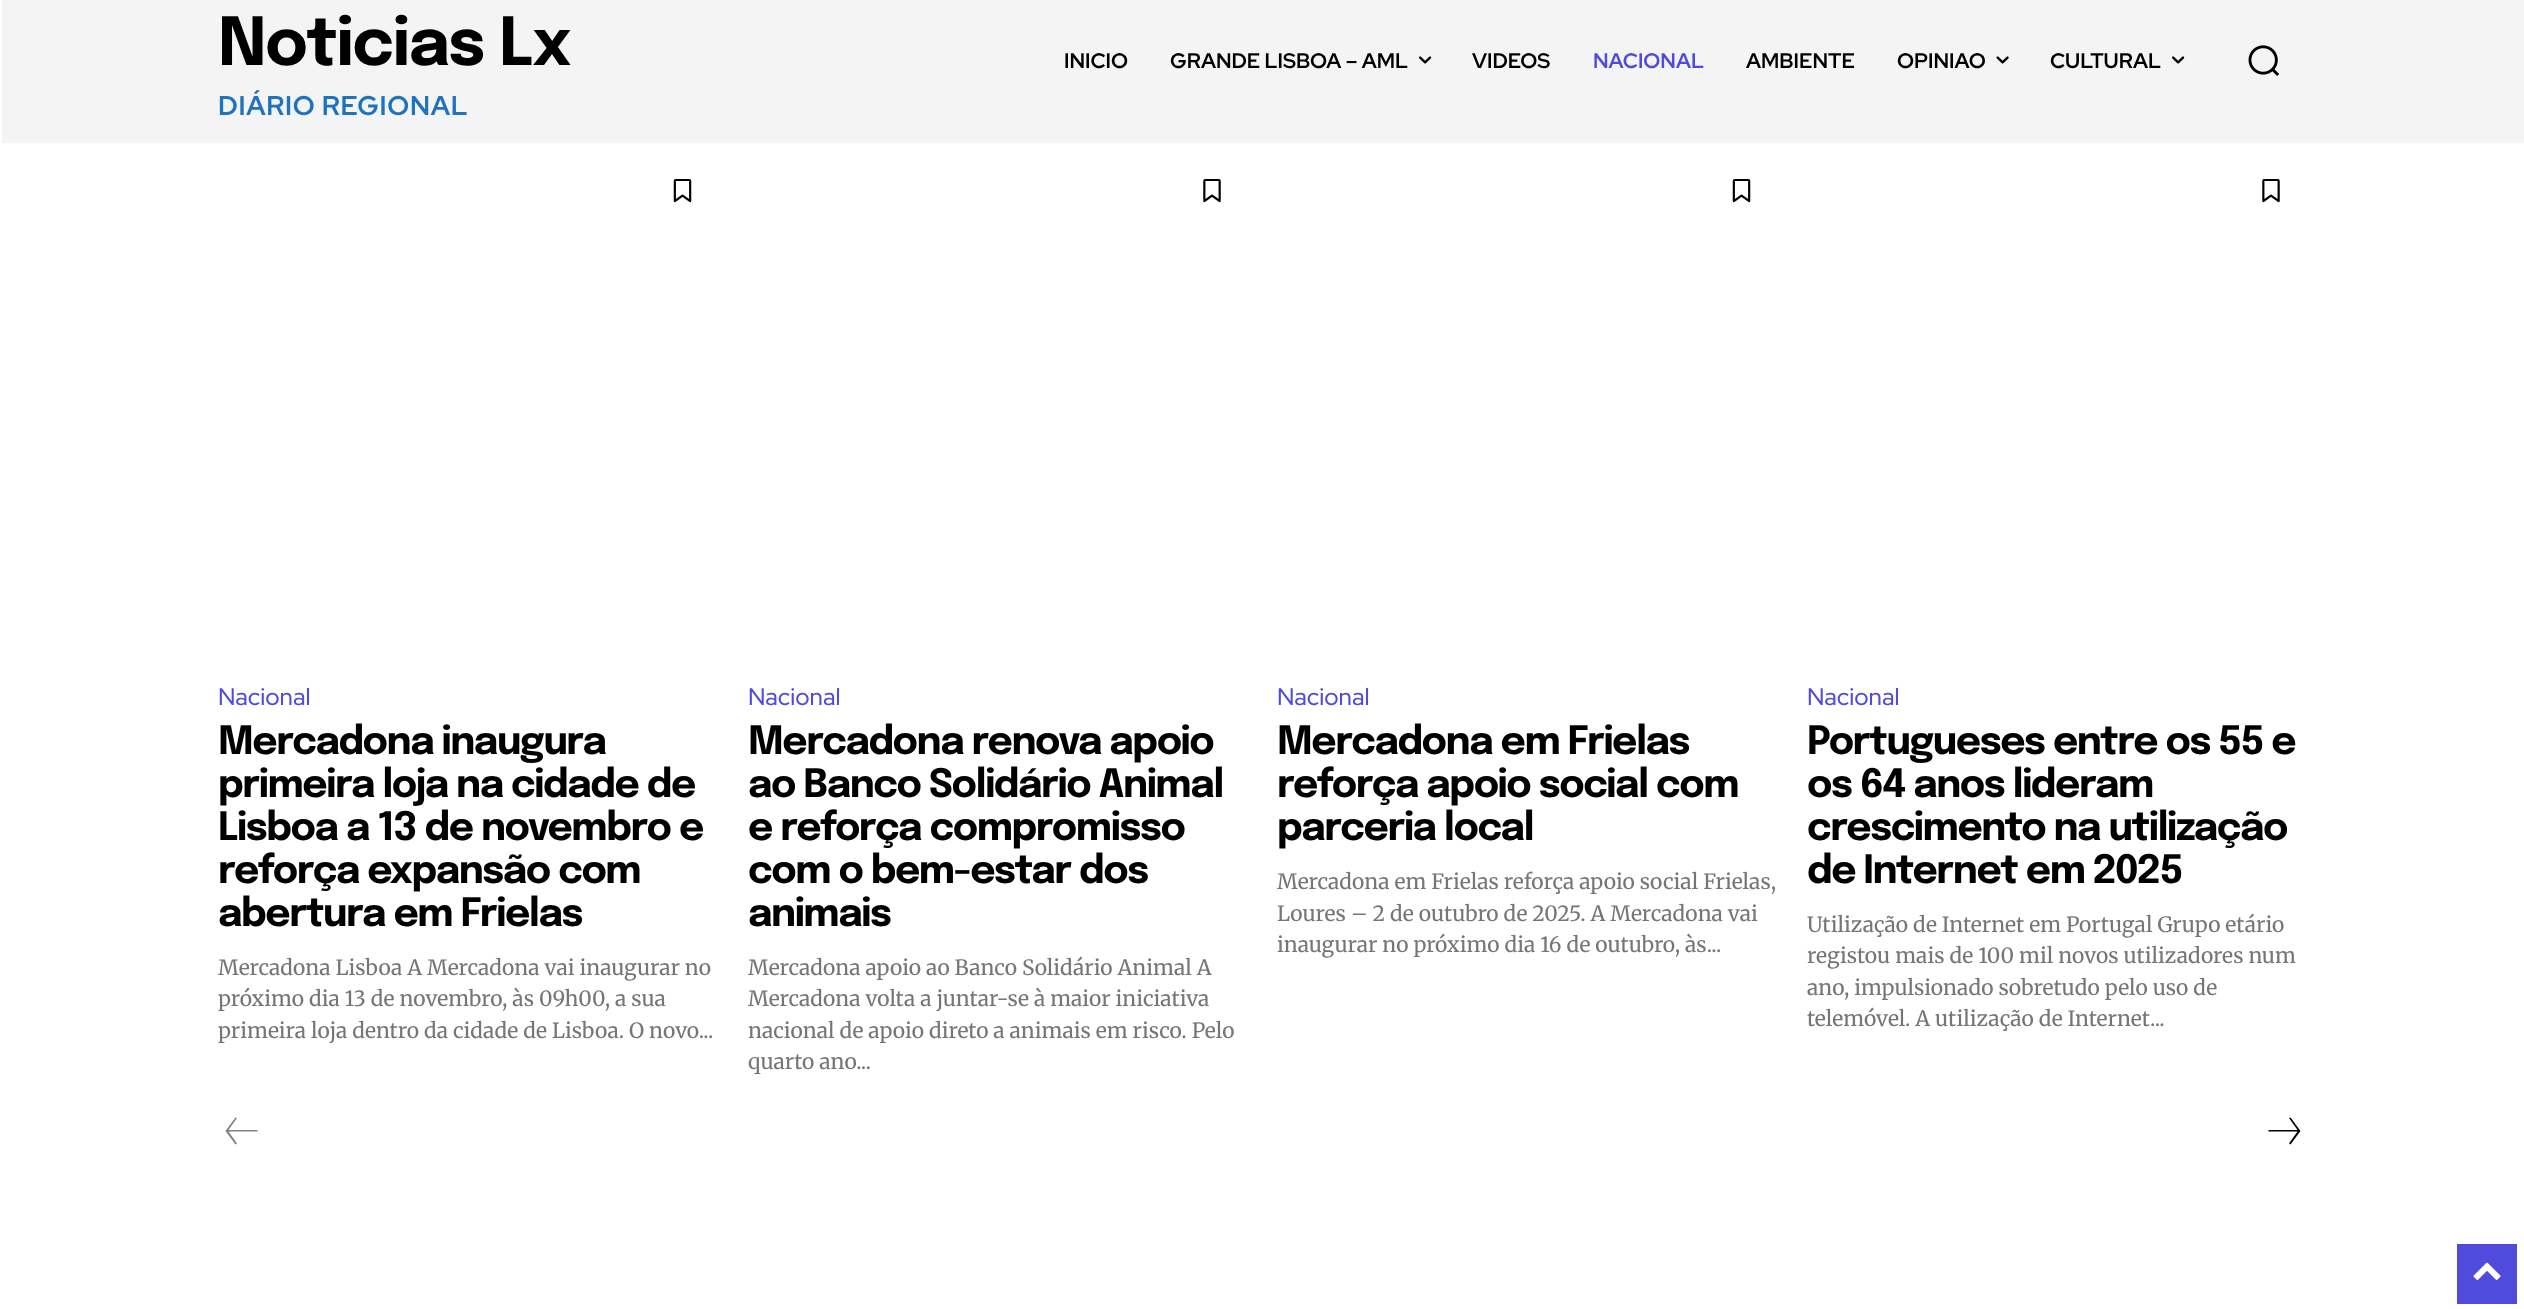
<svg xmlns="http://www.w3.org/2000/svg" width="2524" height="1309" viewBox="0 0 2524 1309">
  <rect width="100%" height="100%" fill="#fff"/>
  <path d="M2 0h2522v143H2z" fill="#f4f4f4"/>
  <image x="1419" y="56" width="13" height="8" href="img/1.png"/>
  <image x="1996" y="56" width="13" height="8" href="img/2.png"/>
  <image x="2172" y="56" width="13" height="8" href="img/1.png"/>
  <image x="2248" y="45" width="31" height="31" href="img/3.png"/>
  <image x="673" y="179" width="19" height="24" href="img/4.png"/>
  <image x="1203" y="179" width="18" height="24" href="img/5.png"/>
  <image x="1732" y="179" width="19" height="24" href="img/4.png"/>
  <image x="2262" y="179" width="18" height="24" href="img/5.png"/>
  <path d="M237 1143.5L228.5 1131.5H257.5V1130H228.5L237 1118L235.5 1117.5L225.5 1131L235.5 1144.5Z" fill="#808080"/>
  <path d="M2289 1143.5L2290.5 1144.5L2300.5 1131L2290.5 1117.5L2289 1118L2297.5 1130H2268.5V1131.5H2297.5Z" fill="#000"/>
  <path d="M2457 1244h60v60H2457z" fill="#504bdc"/>
  <image x="2473" y="1262" width="28" height="18" href="img/6.png"/>
  <text x="218" y="65" font-family="Epilogue" font-size="66" font-weight="bold" letter-spacing="-1.5" fill="#000">Noticias Lx</text>
  <text x="218" y="115" font-family="Red Hat Display" font-size="27" font-weight="bold" letter-spacing="0.75" fill="#1e73be">DIÁRIO REGIONAL</text>
  <g font-family="Red Hat Display" font-size="21" font-weight="bold" fill="#000">
    <text x="1064" y="68">INICIO</text>
    <text x="1170" y="68">GRANDE LISBOA – AML</text>
    <text x="1472" y="68">VIDEOS</text>
  </g>
  <text x="1593" y="68" font-family="Red Hat Display" font-size="21" font-weight="bold" fill="#504bdc">NACIONAL</text>
  <g font-family="Red Hat Display" font-size="21" font-weight="bold" fill="#000">
    <text x="1746" y="68">AMBIENTE</text>
    <text x="1897" y="68">OPINIAO</text>
    <text x="2050" y="68">CULTURAL</text>
  </g>
  <text x="218" y="705" font-family="Red Hat Display" font-size="24" font-weight="500" fill="#504bdc">Nacional</text>
  <g font-family="Epilogue" font-size="39" font-weight="bold" letter-spacing="-1.5" fill="#000">
    <text x="218" y="754">Mercadona inaugura</text>
    <text x="218" y="797">primeira loja na cidade de</text>
    <text x="218" y="840">Lisboa a 13 de novembro e</text>
    <text x="218" y="883">reforça expansão com</text>
    <text x="218" y="926">abertura em Frielas</text>
  </g>
  <g font-family="Merriweather" font-size="21" fill="#767676">
    <text x="218" y="975">Mercadona Lisboa A Mercadona vai inaugurar no</text>
    <text x="218" y="1006">próximo dia 13 de novembro, às 09h00, a sua</text>
    <text x="218" y="1038">primeira loja dentro da cidade de Lisboa. O novo...</text>
  </g>
  <text x="748" y="705" font-family="Red Hat Display" font-size="24" font-weight="500" fill="#504bdc">Nacional</text>
  <g font-family="Epilogue" font-size="39" font-weight="bold" letter-spacing="-1.5" fill="#000">
    <text x="748" y="754">Mercadona renova apoio</text>
    <text x="748" y="797">ao Banco Solidário Animal</text>
    <text x="748" y="840">e reforça compromisso</text>
    <text x="748" y="883">com o bem-estar dos</text>
    <text x="748" y="926">animais</text>
  </g>
  <g font-family="Merriweather" font-size="21" fill="#767676">
    <text x="748" y="975">Mercadona apoio ao Banco Solidário Animal A</text>
    <text x="748" y="1006">Mercadona volta a juntar-se à maior iniciativa</text>
    <text x="748" y="1038">nacional de apoio direto a animais em risco. Pelo</text>
    <text x="748" y="1069">quarto ano...</text>
  </g>
  <text x="1277" y="705" font-family="Red Hat Display" font-size="24" font-weight="500" fill="#504bdc">Nacional</text>
  <g font-family="Epilogue" font-size="39" font-weight="bold" letter-spacing="-1.5" fill="#000">
    <text x="1277" y="754">Mercadona em Frielas</text>
    <text x="1277" y="797">reforça apoio social com</text>
    <text x="1277" y="840">parceria local</text>
  </g>
  <g font-family="Merriweather" font-size="21" fill="#767676">
    <text x="1277" y="889">Mercadona em Frielas reforça apoio social Frielas,</text>
    <text x="1277" y="921">Loures – 2 de outubro de 2025. A Mercadona vai</text>
    <text x="1277" y="952">inaugurar no próximo dia 16 de outubro, às...</text>
  </g>
  <text x="1807" y="705" font-family="Red Hat Display" font-size="24" font-weight="500" fill="#504bdc">Nacional</text>
  <g font-family="Epilogue" font-size="39" font-weight="bold" letter-spacing="-1.5" fill="#000">
    <text x="1807" y="754">Portugueses entre os 55 e</text>
    <text x="1807" y="797">os 64 anos lideram</text>
    <text x="1807" y="840">crescimento na utilização</text>
    <text x="1807" y="883">de Internet em 2025</text>
  </g>
  <g font-family="Merriweather" font-size="21" fill="#767676">
    <text x="1807" y="932">Utilização de Internet em Portugal Grupo etário</text>
    <text x="1807" y="963">registou mais de 100 mil novos utilizadores num</text>
    <text x="1807" y="995">ano, impulsionado sobretudo pelo uso de</text>
    <text x="1807" y="1026">telemóvel. A utilização de Internet...</text>
  </g>
</svg>
